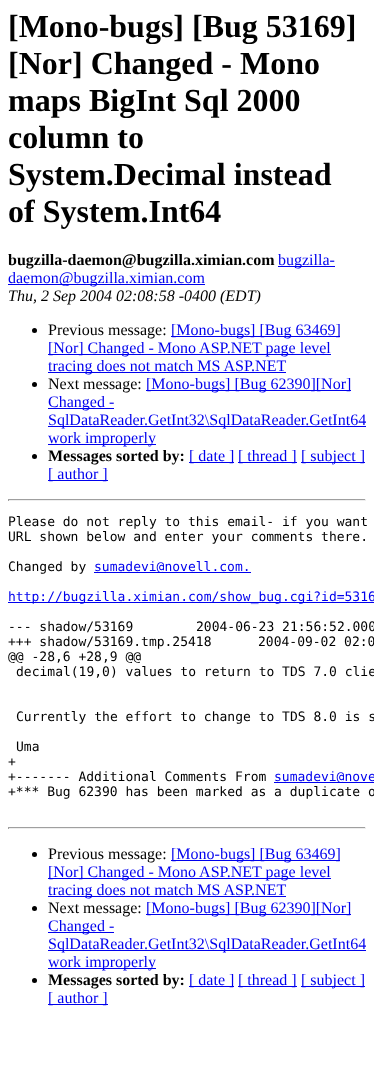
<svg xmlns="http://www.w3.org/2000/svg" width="374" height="1078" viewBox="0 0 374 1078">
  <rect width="100%" height="100%" fill="#fff"/>
  <path d="M278 266h57v1H278z" fill="#00e"/>
  <path d="M8 284h197v1H8z" fill="#00e"/>
  <circle cx="34.5" cy="330.5" r="2.5" fill="#000"/>
  <path d="M171 336h169v1H171z" fill="#00e"/>
  <path d="M48 354h283v1H48z" fill="#00e"/>
  <path d="M48 372h238v1H48z" fill="#00e"/>
  <circle cx="34.5" cy="384.5" r="2.5" fill="#000"/>
  <path d="M146 390h205v1H146z" fill="#00e"/>
  <path d="M48 408h66v1H48z" fill="#00e"/>
  <path d="M48 426h318v1H48z" fill="#00e"/>
  <path d="M48 444h108v1H48z" fill="#00e"/>
  <circle cx="34.5" cy="456.5" r="2.5" fill="#000"/>
  <path d="M189 462h45v1H189z" fill="#00e"/>
  <path d="M238 462h59v1H238z" fill="#00e"/>
  <path d="M301 462h64v1H301z" fill="#00e"/>
  <path d="M48 480h60v1H48z" fill="#00e"/>
  <path d="M8 499h358v1H8z" fill="#9f9f9f"/>
  <path d="M365 499h1v2H365z" fill="#eee"/>
  <path d="M8 500h358v1H8z" fill="#eee"/>
  <path d="M8 499h1v2H8z" fill="#9f9f9f"/>
  <path d="M94 572h157v1H94z" fill="#00e"/>
  <path d="M8 602h366v1H8z" fill="#00e"/>
  <path d="M274 782h100v1H274z" fill="#00e"/>
  <path d="M8 827h358v1H8z" fill="#9f9f9f"/>
  <path d="M365 827h1v2H365z" fill="#eee"/>
  <path d="M8 828h358v1H8z" fill="#eee"/>
  <path d="M8 827h1v2H8z" fill="#9f9f9f"/>
  <circle cx="34.5" cy="854.5" r="2.5" fill="#000"/>
  <path d="M171 860h169v1H171z" fill="#00e"/>
  <path d="M48 878h283v1H48z" fill="#00e"/>
  <path d="M48 896h238v1H48z" fill="#00e"/>
  <circle cx="34.5" cy="908.5" r="2.5" fill="#000"/>
  <path d="M146 914h205v1H146z" fill="#00e"/>
  <path d="M48 932h66v1H48z" fill="#00e"/>
  <path d="M48 950h318v1H48z" fill="#00e"/>
  <path d="M48 968h108v1H48z" fill="#00e"/>
  <circle cx="34.5" cy="980.5" r="2.5" fill="#000"/>
  <path d="M189 986h45v1H189z" fill="#00e"/>
  <path d="M238 986h59v1H238z" fill="#00e"/>
  <path d="M301 986h64v1H301z" fill="#00e"/>
  <path d="M48 1004h60v1H48z" fill="#00e"/>
  <g font-family="Liberation Serif" font-size="32" font-weight="bold" fill="#000">
    <text x="8" y="37">[Mono-bugs] [Bug 53169]</text>
    <text x="8" y="74">[Nor] Changed - Mono</text>
    <text x="8" y="111">maps BigInt Sql 2000</text>
    <text x="8" y="148">column to</text>
    <text x="8" y="185">System.Decimal instead</text>
    <text x="8" y="222">of System.Int64</text>
  </g>
  <text x="8" y="265" font-family="Liberation Serif" font-size="16" font-weight="bold" fill="#000">bugzilla-daemon@bugzilla.ximian.com</text>
  <g font-family="Liberation Serif" font-size="16" fill="#00e">
    <text x="278" y="265">bugzilla-</text>
    <text x="8" y="283">daemon@bugzilla.ximian.com</text>
  </g>
  <text x="8" y="301" font-family="Liberation Serif" font-size="16" font-style="italic" fill="#000">Thu, 2 Sep 2004 02:08:58 -0400 (EDT)</text>
  <text x="48" y="335" font-family="Liberation Serif" font-size="16" fill="#000">Previous message:</text>
  <g font-family="Liberation Serif" font-size="16" fill="#00e">
    <text x="171" y="335">[Mono-bugs] [Bug 63469]</text>
    <text x="48" y="353">[Nor] Changed - Mono ASP.NET page level</text>
    <text x="48" y="371">tracing does not match MS ASP.NET</text>
  </g>
  <text x="48" y="389" font-family="Liberation Serif" font-size="16" fill="#000">Next message:</text>
  <g font-family="Liberation Serif" font-size="16" fill="#00e">
    <text x="146" y="389">[Mono-bugs] [Bug 62390][Nor]</text>
    <text x="48" y="407">Changed -</text>
    <text x="48" y="425">SqlDataReader.GetInt32\SqlDataReader.GetInt64</text>
    <text x="48" y="443">work improperly</text>
  </g>
  <text x="48" y="461" font-family="Liberation Serif" font-size="16" font-weight="bold" fill="#000">Messages sorted by:</text>
  <g font-family="Liberation Serif" font-size="16" fill="#00e">
    <text x="189" y="461">[ date ]</text>
    <text x="238" y="461">[ thread ]</text>
    <text x="301" y="461">[ subject ]</text>
    <text x="48" y="479">[ author ]</text>
  </g>
  <g font-family="DejaVu Sans Mono" font-size="13" fill="#000">
    <text x="8" y="526">Please do not reply to this email- if you want</text>
    <text x="8" y="541">URL shown below and enter your comments there.</text>
    <text x="8" y="571">Changed by</text>
  </g>
  <g font-family="DejaVu Sans Mono" font-size="13" fill="#00e">
    <text x="94" y="571">sumadevi@novell.com.</text>
    <text x="8" y="601">http://bugzilla.ximian.com/show_bug.cgi?id=5316</text>
  </g>
  <g font-family="DejaVu Sans Mono" font-size="13" fill="#000">
    <text x="8" y="631">--- shadow/53169</text>
    <text x="196" y="631">2004-06-23 21:56:52.000</text>
    <text x="8" y="646">+++ shadow/53169.tmp.25418</text>
    <text x="258" y="646">2004-09-02 02:0</text>
    <text x="8" y="661">@@ -28,6 +28,9 @@</text>
    <text x="16" y="676">decimal(19,0) values to return to TDS 7.0 clie</text>
    <text x="16" y="721">Currently the effort to change to TDS 8.0 is s</text>
    <text x="16" y="751">Uma</text>
    <text x="8" y="766">+</text>
    <text x="8" y="781">+------- Additional Comments From</text>
  </g>
  <text x="274" y="781" font-family="DejaVu Sans Mono" font-size="13" fill="#00e">sumadevi@nove</text>
  <text x="8" y="796" font-family="DejaVu Sans Mono" font-size="13" fill="#000">+*** Bug 62390 has been marked as a duplicate o</text>
  <text x="48" y="859" font-family="Liberation Serif" font-size="16" fill="#000">Previous message:</text>
  <g font-family="Liberation Serif" font-size="16" fill="#00e">
    <text x="171" y="859">[Mono-bugs] [Bug 63469]</text>
    <text x="48" y="877">[Nor] Changed - Mono ASP.NET page level</text>
    <text x="48" y="895">tracing does not match MS ASP.NET</text>
  </g>
  <text x="48" y="913" font-family="Liberation Serif" font-size="16" fill="#000">Next message:</text>
  <g font-family="Liberation Serif" font-size="16" fill="#00e">
    <text x="146" y="913">[Mono-bugs] [Bug 62390][Nor]</text>
    <text x="48" y="931">Changed -</text>
    <text x="48" y="949">SqlDataReader.GetInt32\SqlDataReader.GetInt64</text>
    <text x="48" y="967">work improperly</text>
  </g>
  <text x="48" y="985" font-family="Liberation Serif" font-size="16" font-weight="bold" fill="#000">Messages sorted by:</text>
  <g font-family="Liberation Serif" font-size="16" fill="#00e">
    <text x="189" y="985">[ date ]</text>
    <text x="238" y="985">[ thread ]</text>
    <text x="301" y="985">[ subject ]</text>
    <text x="48" y="1003">[ author ]</text>
  </g>
</svg>
